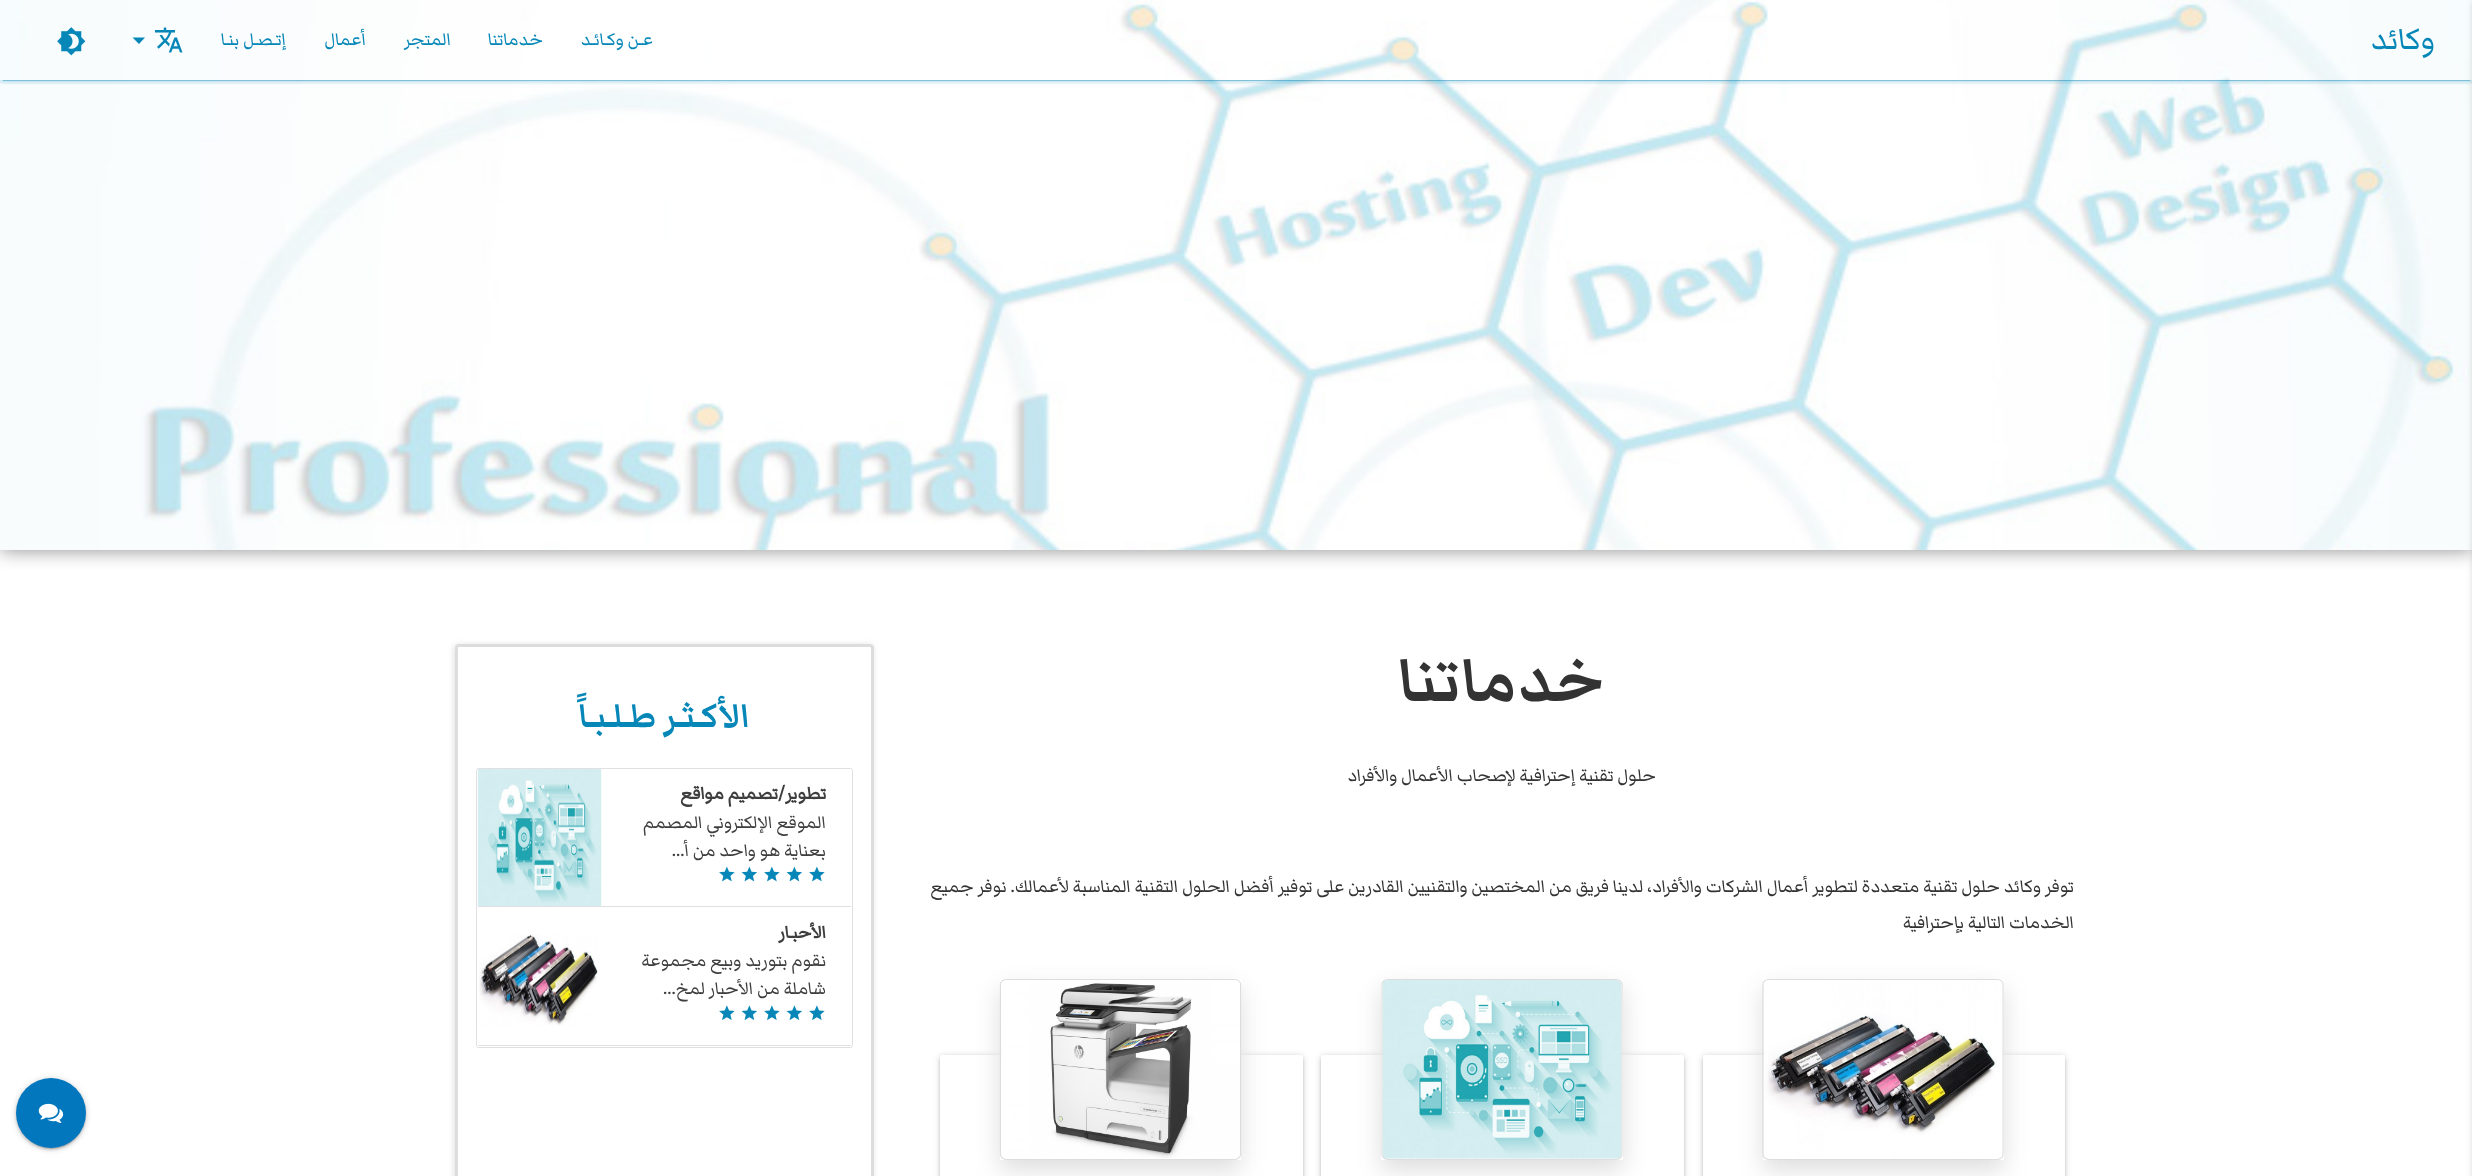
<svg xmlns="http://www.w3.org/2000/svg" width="2472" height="1176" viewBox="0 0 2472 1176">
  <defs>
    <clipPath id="clip1"><path d="M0 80h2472v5H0z"/></clipPath>
    <clipPath id="clip2"><path d="M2 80h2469v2H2z"/></clipPath>
    <clipPath id="clip3"><path d="M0 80h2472v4H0z"/></clipPath>
    <clipPath id="clip4"><path d="M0 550h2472v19H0z"/></clipPath>
    <clipPath id="clip5"><path d="M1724 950H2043V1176H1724ZM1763 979H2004V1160H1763Z" clip-rule="evenodd"/></clipPath>
    <clipPath id="clip6"><path d="M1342 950H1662V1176H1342ZM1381 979H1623V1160H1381Z" clip-rule="evenodd"/></clipPath>
    <clipPath id="clip7"><path d="M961 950H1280V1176H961ZM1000 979H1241V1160H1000Z" clip-rule="evenodd"/></clipPath>
    <clipPath id="clip8"><path d="M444 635H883V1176H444ZM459 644H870C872 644 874 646 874 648V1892C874 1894 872 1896 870 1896H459C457 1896 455 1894 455 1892V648C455 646 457 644 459 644Z" clip-rule="evenodd"/></clipPath>
  </defs>
  <rect width="100%" height="100%" fill="#fff"/>
  <image x="0" y="0" width="2472" height="550" href="img/3.png"/>
  <path d="M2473 1h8v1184H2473z" fill="#00000033" filter="blur(3px)"/>
  <g clip-path="url(#clip1)">
    <path d="M0 1h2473v80H0z" fill="#0887b82b" filter="blur(3px)"/>
  </g>
  <g clip-path="url(#clip2)">
    <path d="M3 6h2467v75H3z" fill="#0887b861" filter="blur(0.5px)"/>
  </g>
  <g clip-path="url(#clip3)">
    <path d="M0 3h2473v80H0z" fill="#0887b81f" filter="blur(1px)"/>
  </g>
  <g clip-path="url(#clip4)">
    <path d="M0 0h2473v550H0z" fill="#8a8a8a" filter="blur(9.5px)"/>
  </g>
  <image x="155" y="27" width="28" height="26" href="img/1.png"/>
  <path d="M132.5 37.5H145L139 44Z" fill="#0787b8"/>
  <image x="57" y="27" width="29" height="29" href="img/2.png"/>
  <rect x="1703" y="1056" width="362" height="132" rx="2.5" fill="#00000033" filter="blur(3px)"/>
  <rect x="1703" y="1058" width="362" height="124" rx="2.5" fill="#00000024" filter="blur(1px)"/>
  <rect x="1703" y="1055" width="362" height="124" rx="2.5" fill="#fff"/>
  <g clip-path="url(#clip5)">
    <path d="M1763 989h241v181H1763z" fill="#ddd" filter="blur(12.5px)"/>
  </g>
  <path d="M1769.5 979.5H1996.5C2000 979.5 2003 981.5 2003 984V1154.5C2003 1157 2000 1159.5 1996.5 1159.5H1769.5C1766 1159.5 1763 1157 1763 1154.5V984C1763 981.5 1766 979.5 1769.5 979.5Z" fill="none" stroke="#ddd" stroke-width="1.2"/>
  <image x="1764" y="980" width="239" height="179" href="img/4.png"/>
  <rect x="1321" y="1056" width="363" height="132" rx="2.5" fill="#00000033" filter="blur(3px)"/>
  <rect x="1321" y="1058" width="363" height="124" rx="2.5" fill="#00000024" filter="blur(1px)"/>
  <rect x="1321" y="1055" width="363" height="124" rx="2.5" fill="#fff"/>
  <g clip-path="url(#clip6)">
    <path d="M1381 989h242v181H1381z" fill="#ddd" filter="blur(12.5px)"/>
  </g>
  <path d="M1388.5 979.5H1615.5C1619 979.5 1622 981.5 1622 984V1154.5C1622 1157 1619 1159.5 1615.5 1159.5H1388.5C1385 1159.5 1382 1157 1382 1154.5V984C1382 981.5 1385 979.5 1388.5 979.5Z" fill="none" stroke="#ddd" stroke-width="1.2"/>
  <image x="1382" y="980" width="239" height="179" href="img/5.png"/>
  <rect x="940" y="1056" width="363" height="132" rx="2.5" fill="#00000033" filter="blur(3px)"/>
  <rect x="940" y="1058" width="363" height="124" rx="2.5" fill="#00000024" filter="blur(1px)"/>
  <rect x="940" y="1055" width="363" height="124" rx="2.5" fill="#fff"/>
  <g clip-path="url(#clip7)">
    <path d="M1000 989h241v181H1000z" fill="#ddd" filter="blur(12.5px)"/>
  </g>
  <path d="M1007 979.5H1234C1237.5 979.5 1240.5 981.5 1240.5 984V1154.5C1240.5 1157 1237.5 1159.5 1234 1159.5H1007C1003.5 1159.5 1000.5 1157 1000.5 1154.5V984C1000.5 981.5 1003.5 979.5 1007 979.5Z" fill="none" stroke="#ddd" stroke-width="1.2"/>
  <image x="1001" y="980" width="239" height="179" href="img/6.png"/>
  <g clip-path="url(#clip8)">
    <rect x="454" y="645" width="419" height="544" rx="4" fill="#ddd" filter="blur(3px)"/>
  </g>
  <rect x="456.5" y="645.5" width="416" height="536" rx="2.5" fill="none" stroke="#ddd" stroke-width="3"/>
  <rect x="476.5" y="768.5" width="376" height="279" rx="2" fill="none" stroke="#e0e0e0"/>
  <path d="M478 906h373v1H478z" fill="#e0e0e0"/>
  <image x="477" y="769" width="125" height="137" href="img/7.png"/>
  <image x="809" y="866" width="16" height="16" href="img/8.png"/>
  <image x="786" y="866" width="16" height="16" href="img/9.png"/>
  <image x="764" y="866" width="16" height="16" href="img/8.png"/>
  <image x="741" y="866" width="16" height="16" href="img/9.png"/>
  <image x="719" y="866" width="16" height="16" href="img/8.png"/>
  <path d="M478 1045H851C851 1045.5 850.5 1046 850 1046H479C478.5 1046 478 1045.5 478 1045Z" fill="#e0e0e0"/>
  <image x="479" y="934" width="119" height="92" href="img/10.png"/>
  <image x="809" y="1005" width="16" height="15" href="img/11.png"/>
  <image x="786" y="1005" width="16" height="15" href="img/12.png"/>
  <image x="764" y="1005" width="16" height="15" href="img/11.png"/>
  <image x="741" y="1005" width="16" height="15" href="img/12.png"/>
  <image x="719" y="1005" width="16" height="15" href="img/11.png"/>
  <rect x="16" y="1079" width="70" height="70" rx="35" fill="#00000033" filter="blur(3px)"/>
  <rect x="19" y="1084" width="65" height="65" rx="32.5" fill="#0000001f" filter="blur(0.5px)"/>
  <rect x="16" y="1080" width="70" height="70" rx="35" fill="#00000024" filter="blur(1px)"/>
  <circle cx="51" cy="1113" r="35" fill="#0277bd"/>
  <image x="38" y="1103" width="26" height="20" href="img/13.png"/>
  <text x="2435" y="49" font-family="Markazi Text" font-size="39" direction="rtl" fill="#0787b8">وكائد</text>
  <g font-family="Markazi Text" font-size="22.5" direction="rtl" fill="#0787b8">
    <text x="653" y="45">عـن وكـائـد</text>
    <text x="543" y="45">خدماتنا</text>
    <text x="451" y="45">المتجر</text>
    <text x="366" y="45">أعمال</text>
    <text x="286" y="45">إتـصـل بنـا</text>
  </g>
  <text x="1605" y="701" font-family="Markazi Text" font-size="79" font-weight="bold" direction="rtl" fill="#333">خدماتنا</text>
  <g font-family="Markazi Text" font-size="22.5" direction="rtl" fill="#333">
    <text x="1656" y="781">حلول تقنية إحترافية لإصحاب الأعمال والأفراد</text>
    <text x="2074" y="892">توفر وكائد حلول تقنية متعددة لتطوير أعمال الشركات والأفراد، لدينا فريق من المختصين والتقنيين القادرين على توفير أفضل الحلول التقنية المناسبة لأعمالك. نوفر جميع</text>
    <text x="2074" y="928">الخدمات التالية بإحترافية</text>
  </g>
  <text x="750" y="727" font-family="Markazi Text" font-size="42.75" font-weight="bold" direction="rtl" fill="#0787b8">الأكـثـر طـلـبـاً</text>
  <text x="826" y="799" font-family="'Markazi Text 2'" font-size="22.5" font-weight="bold" direction="rtl" fill="#3e3e3e">تطوير/تصميم مواقع</text>
  <g font-family="Markazi Text" font-size="22.5" direction="rtl" fill="#3e3e3e">
    <text x="826" y="828">الموقع الإلكتروني المصمم</text>
    <text x="826" y="856">بعناية هو واحد من أ...</text>
  </g>
  <text x="826" y="938" font-family="'Markazi Text 2'" font-size="22.5" font-weight="bold" direction="rtl" fill="#3e3e3e">الأحبـار</text>
  <g font-family="Markazi Text" font-size="22.5" direction="rtl" fill="#3e3e3e">
    <text x="826" y="966">نقوم بتوريد وبيع مجموعة</text>
    <text x="826" y="994">شاملة من الأحبار لمخ...</text>
  </g>
</svg>
